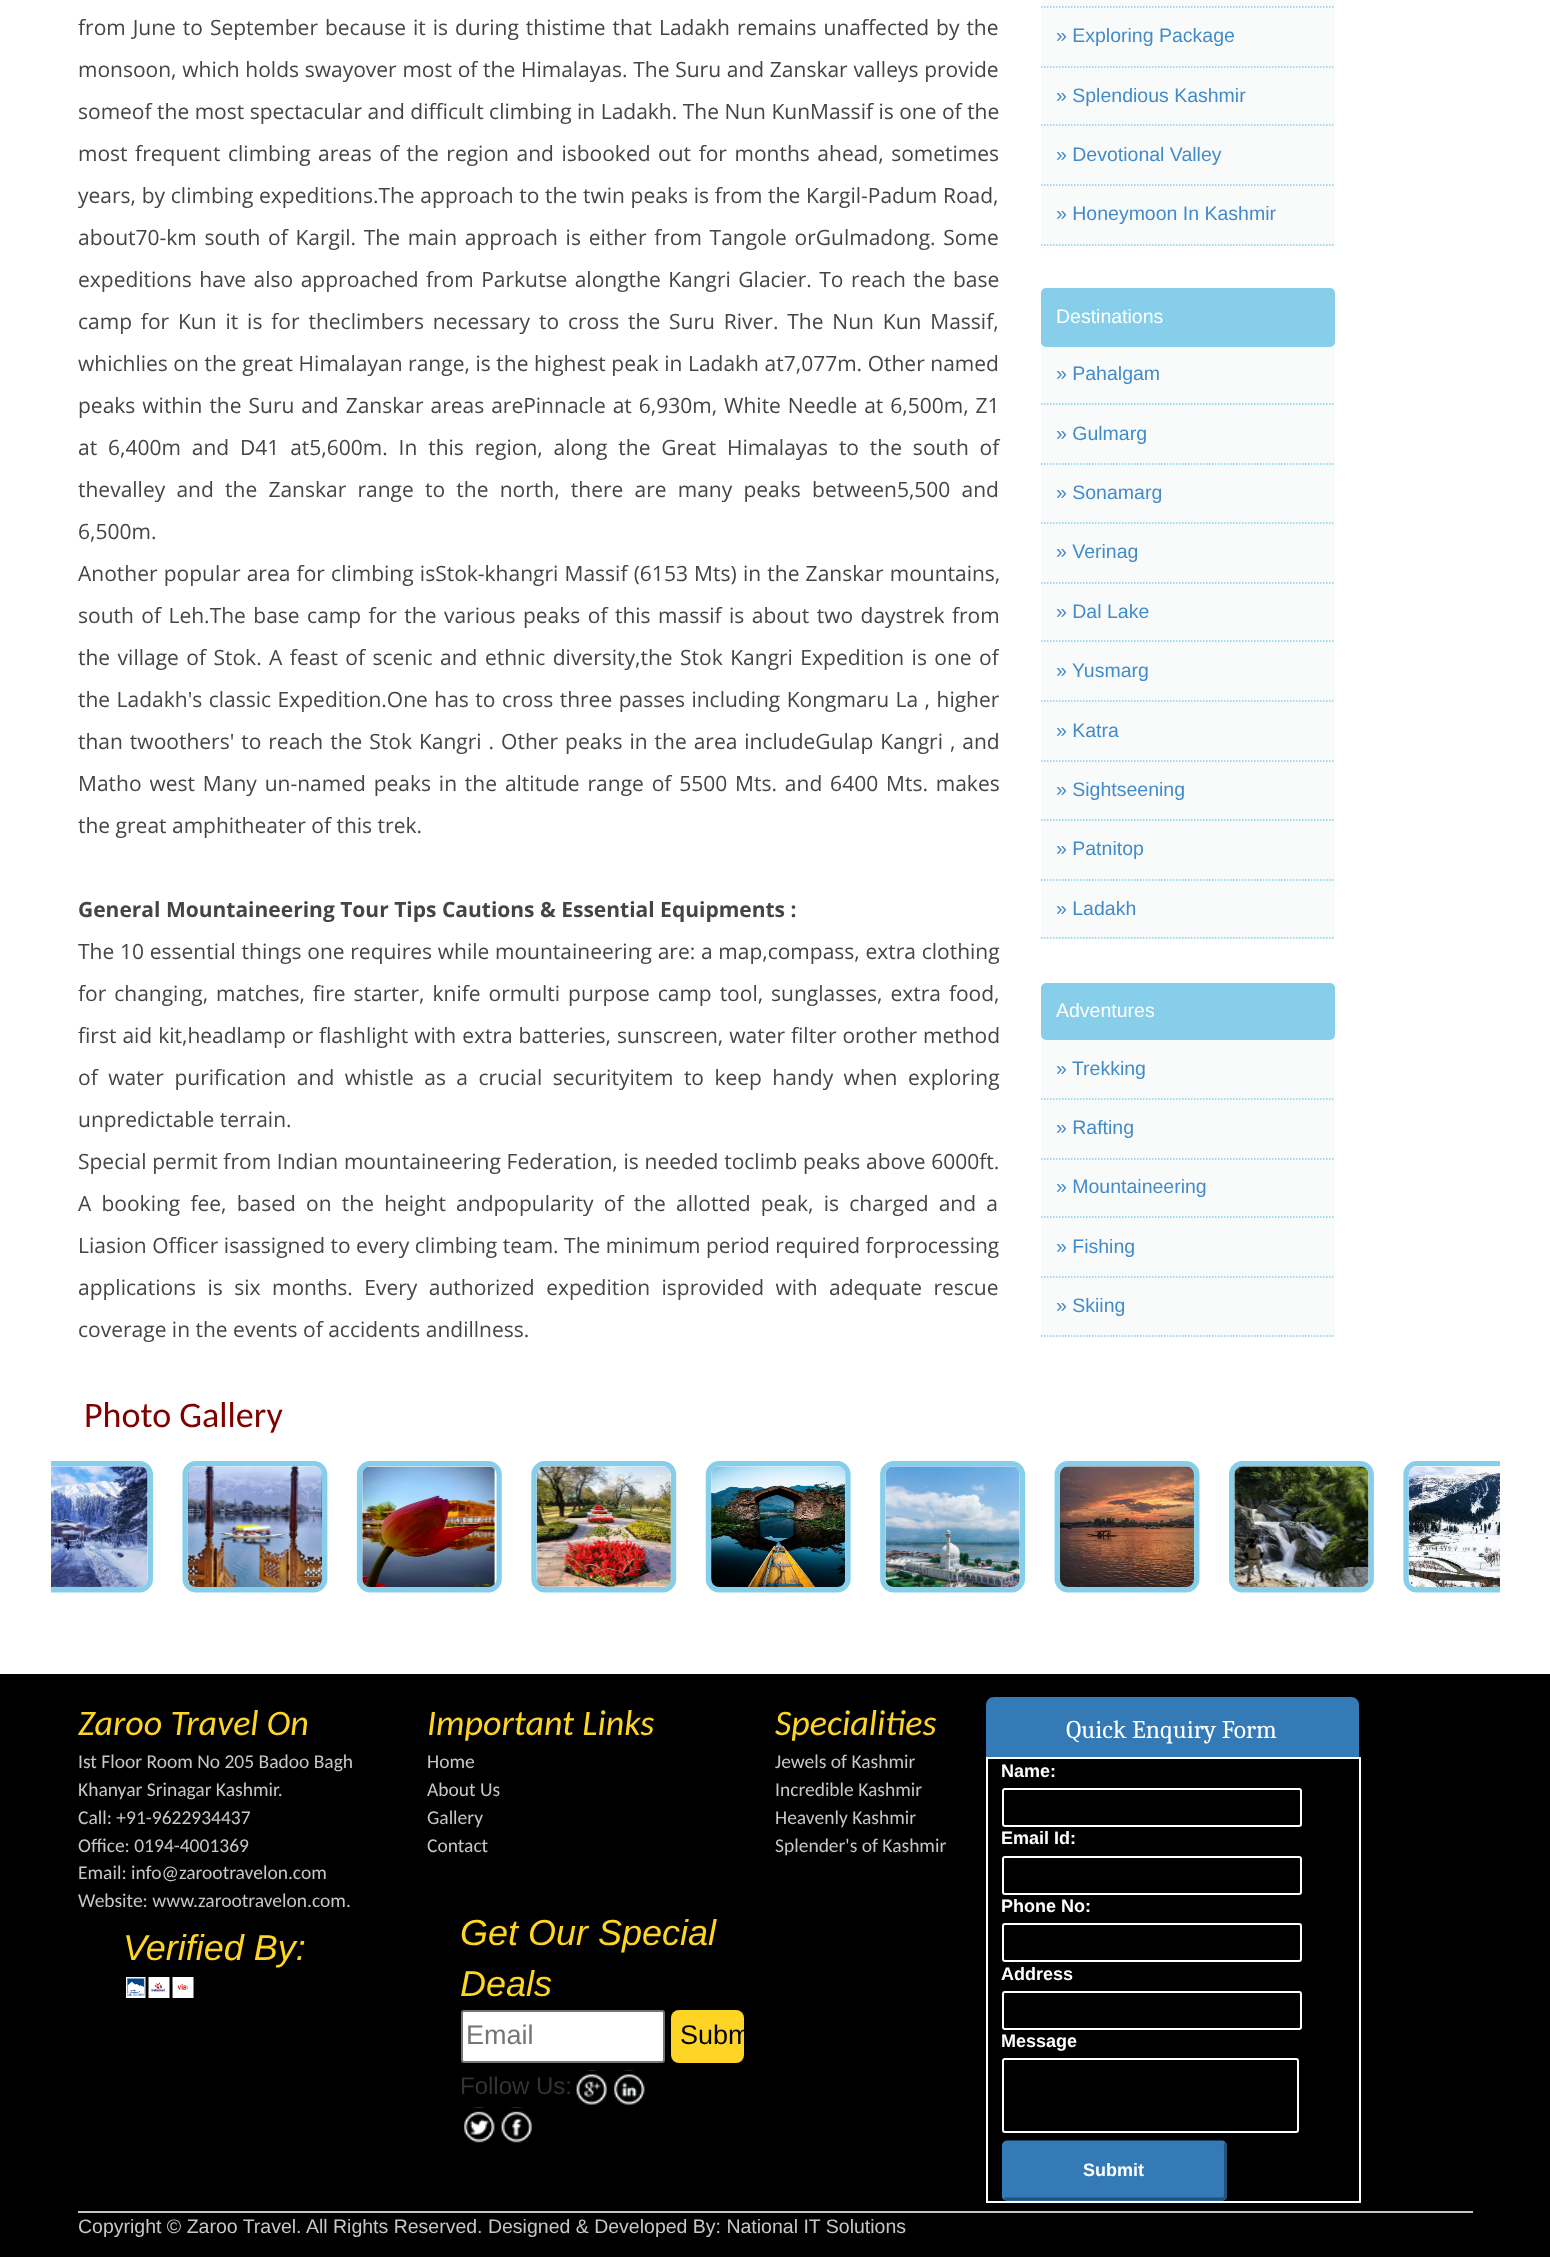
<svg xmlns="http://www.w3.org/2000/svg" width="1550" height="2257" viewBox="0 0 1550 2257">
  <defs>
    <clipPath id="clip1"><path d="M78 0h921v1365H78z"/></clipPath>
    <clipPath id="clip2"><path d="M78 1697h348v210H78z"/></clipPath>
    <clipPath id="clip3"><rect x="671" y="2010" width="73" height="53" rx="8"/></clipPath>
  </defs>
  <rect width="100%" height="100%" fill="#fff"/>
  <path d="M1041 0h294v246H1041z" fill="#f9fbfb"/>
  <path d="M1041 7H1335" fill="none" stroke="#87ceeb" stroke-width="1.5" stroke-dasharray="1.5 1.5"/>
  <path d="M1041 67H1335" fill="none" stroke="#87ceeb" stroke-width="1.5" stroke-dasharray="1.5 1.5"/>
  <path d="M1041 125H1335" fill="none" stroke="#87ceeb" stroke-width="1.5" stroke-dasharray="1.5 1.5"/>
  <path d="M1041 185H1335" fill="none" stroke="#87ceeb" stroke-width="1.5" stroke-dasharray="1.5 1.5"/>
  <path d="M1041 245H1335" fill="none" stroke="#87ceeb" stroke-width="1.5" stroke-dasharray="1.5 1.5"/>
  <rect x="1041" y="288" width="294" height="59" rx="5" fill="#87ceeb"/>
  <path d="M1041 347h294v592H1041z" fill="#f9fbfb"/>
  <path d="M1041 404H1335" fill="none" stroke="#87ceeb" stroke-width="1.5" stroke-dasharray="1.5 1.5"/>
  <path d="M1041 464H1335" fill="none" stroke="#87ceeb" stroke-width="1.5" stroke-dasharray="1.5 1.5"/>
  <path d="M1041 523H1335" fill="none" stroke="#87ceeb" stroke-width="1.5" stroke-dasharray="1.5 1.5"/>
  <path d="M1041 583H1335" fill="none" stroke="#87ceeb" stroke-width="1.5" stroke-dasharray="1.5 1.5"/>
  <path d="M1041 641H1335" fill="none" stroke="#87ceeb" stroke-width="1.5" stroke-dasharray="1.5 1.5"/>
  <path d="M1041 701H1335" fill="none" stroke="#87ceeb" stroke-width="1.5" stroke-dasharray="1.5 1.5"/>
  <path d="M1041 761H1335" fill="none" stroke="#87ceeb" stroke-width="1.5" stroke-dasharray="1.5 1.5"/>
  <path d="M1041 820H1335" fill="none" stroke="#87ceeb" stroke-width="1.5" stroke-dasharray="1.5 1.5"/>
  <path d="M1041 880H1335" fill="none" stroke="#87ceeb" stroke-width="1.5" stroke-dasharray="1.5 1.5"/>
  <path d="M1041 938H1335" fill="none" stroke="#87ceeb" stroke-width="1.5" stroke-dasharray="1.5 1.5"/>
  <rect x="1041" y="983" width="294" height="57" rx="5" fill="#87ceeb"/>
  <path d="M1041 1040h294v297H1041z" fill="#f9fbfb"/>
  <path d="M1041 1099H1335" fill="none" stroke="#87ceeb" stroke-width="1.5" stroke-dasharray="1.5 1.5"/>
  <path d="M1041 1159H1335" fill="none" stroke="#87ceeb" stroke-width="1.5" stroke-dasharray="1.5 1.5"/>
  <path d="M1041 1217H1335" fill="none" stroke="#87ceeb" stroke-width="1.5" stroke-dasharray="1.5 1.5"/>
  <path d="M1041 1277H1335" fill="none" stroke="#87ceeb" stroke-width="1.5" stroke-dasharray="1.5 1.5"/>
  <path d="M1041 1336H1335" fill="none" stroke="#87ceeb" stroke-width="1.5" stroke-dasharray="1.5 1.5"/>
  <image x="51" y="1461" width="1449" height="132" href="img/1.png"/>
  <path d="M0 1674h1550v583H0z" fill="#000"/>
  <path d="M78 2211h1395v2H78z" fill="#c7c7c7"/>
  <path d="M994 1697H1351C1355.5 1697 1359 1700.5 1359 1705V1757H986V1705C986 1700.5 989.5 1697 994 1697Z" fill="#337ab7"/>
  <path d="M986 1757h375v2H986z" fill="#fff"/>
  <path d="M1359 1757h2v445H1359z" fill="#fff"/>
  <path d="M986 2201h375v2H986z" fill="#fff"/>
  <path d="M986 1757h2v445H986z" fill="#fff"/>
  <rect x="1003" y="1789" width="298" height="37" rx="2" fill="none" stroke="#fff" stroke-width="2"/>
  <rect x="1003" y="1857" width="298" height="37" rx="2" fill="none" stroke="#fff" stroke-width="2"/>
  <rect x="1003" y="1924" width="298" height="37" rx="2" fill="none" stroke="#fff" stroke-width="2"/>
  <rect x="1003" y="1992" width="298" height="37" rx="2" fill="none" stroke="#fff" stroke-width="2"/>
  <rect x="1003" y="2059" width="295" height="73" rx="2" fill="none" stroke="#fff" stroke-width="2"/>
  <rect x="1002" y="2141" width="225" height="60" rx="5" fill="#337ab7"/>
  <path d="M1224.5 2143L1225.5 2145V2196L1224.5 2198L1222.5 2199H1006.5L1004.5 2198" fill="none" stroke="#22517a" stroke-width="3"/>
  <path d="M1004.5 2198L1003.5 2196V2145L1004.5 2143L1006.5 2142H1222.5L1224.5 2143" fill="none" stroke="#337ab7" stroke-width="3"/>
  <image x="126" y="1977" width="20" height="21" href="img/2.png"/>
  <image x="148" y="1977" width="22" height="21" href="img/3.png"/>
  <image x="172" y="1977" width="22" height="21" href="img/4.png"/>
  <rect x="462" y="2011" width="202" height="51" rx="2" fill="#fff" stroke="#767676" stroke-width="2"/>
  <rect x="671" y="2010" width="73" height="53" rx="8" fill="#ffd525"/>
  <image x="576" y="2070" width="31" height="35" href="img/5.png"/>
  <image x="614" y="2070" width="31" height="35" href="img/6.png"/>
  <image x="464" y="2107" width="31" height="36" href="img/7.png"/>
  <image x="501" y="2107" width="31" height="36" href="img/8.png"/>
  <g font-family="Open Sans" font-size="21" fill="#454545">
    <text x="78" y="35" word-spacing="1.5">from June to September because it is during thistime that Ladakh remains unaffected by the</text>
    <text x="78" y="77" word-spacing="0.25">monsoon, which holds swayover most of the Himalayas. The Suru and Zanskar valleys provide</text>
    <text x="78" y="119">someof the most spectacular and difficult climbing in Ladakh. The Nun KunMassif is one of the</text>
    <text x="78" y="161" word-spacing="2.1">most frequent climbing areas of the region and isbooked out for months ahead, sometimes</text>
  </g>
  <g clip-path="url(#clip1)">
    <text x="78" y="203" word-spacing="0.25" font-family="Open Sans" font-size="21" fill="#454545">years, by climbing expeditions.The approach to the twin peaks is from the Kargil-Padum Road,</text>
  </g>
  <g font-family="Open Sans" font-size="21" fill="#454545">
    <text x="78" y="245" word-spacing="2.25">about70-km south of Kargil. The main approach is either from Tangole orGulmadong. Some</text>
    <text x="78" y="287" word-spacing="2">expeditions have also approached from Parkutse alongthe Kangri Glacier. To reach the base</text>
    <text x="78" y="329" word-spacing="3.4">camp for Kun it is for theclimbers necessary to cross the Suru River. The Nun Kun Massif,</text>
    <text x="78" y="371" word-spacing="0.1">whichlies on the great Himalayan range, is the highest peak in Ladakh at7,077m. Other named</text>
    <text x="78" y="413" word-spacing="1.5">peaks within the Suru and Zanskar areas arePinnacle at 6,930m, White Needle at 6,500m, Z1</text>
    <text x="78" y="455" word-spacing="5.4">at 6,400m and D41 at5,600m. In this region, along the Great Himalayas to the south of</text>
    <text x="78" y="497" word-spacing="5.75">thevalley and the Zanskar range to the north, there are many peaks between5,500 and</text>
    <text x="78" y="539">6,500m.</text>
    <text x="78" y="581" word-spacing="0.75">Another popular area for climbing isStok-khangri Massif (6153 Mts) in the Zanskar mountains,</text>
    <text x="78" y="623" word-spacing="2">south of Leh.The base camp for the various peaks of this massif is about two daystrek from</text>
  </g>
  <g clip-path="url(#clip1)">
    <text x="78" y="665" word-spacing="2" font-family="Open Sans" font-size="21" fill="#454545">the village of Stok. A feast of scenic and ethnic diversity,the Stok Kangri Expedition is one of</text>
  </g>
  <g font-family="Open Sans" font-size="21" fill="#454545">
    <text x="78" y="707" word-spacing="1">the Ladakh's classic Expedition.One has to cross three passes including Kongmaru La , higher</text>
    <text x="78" y="749" word-spacing="1.5">than twoothers' to reach the Stok Kangri . Other peaks in the area includeGulap Kangri , and</text>
    <text x="78" y="791" word-spacing="2.4">Matho west Many un-named peaks in the altitude range of 5500 Mts. and 6400 Mts. makes</text>
    <text x="78" y="833">the great amphitheater of this trek.</text>
  </g>
  <text x="78" y="917" font-family="Open Sans" font-size="21" font-weight="bold" fill="#454545">General Mountaineering Tour Tips Cautions &amp; Essential Equipments :</text>
  <g font-family="Open Sans" font-size="21" fill="#454545">
    <text x="78" y="959" word-spacing="0.25">The 10 essential things one requires while mountaineering are: a map,compass, extra clothing</text>
    <text x="78" y="1001" word-spacing="2.5">for changing, matches, fire starter, knife ormulti purpose camp tool, sunglasses, extra food,</text>
    <text x="78" y="1043" word-spacing="0.5">first aid kit,headlamp or flashlight with extra batteries, sunscreen, water filter orother method</text>
    <text x="78" y="1085" word-spacing="5">of water purification and whistle as a crucial securityitem to keep handy when exploring</text>
    <text x="78" y="1127">unpredictable terrain.</text>
    <text x="78" y="1169" word-spacing="0.25">Special permit from Indian mountaineering Federation, is needed toclimb peaks above 6000ft.</text>
    <text x="78" y="1211" word-spacing="4.75">A booking fee, based on the height andpopularity of the allotted peak, is charged and a</text>
    <text x="78" y="1253">Liasion Officer isassigned to every climbing team. The minimum period required forprocessing</text>
    <text x="78" y="1295" word-spacing="6">applications is six months. Every authorized expedition isprovided with adequate rescue</text>
    <text x="78" y="1337">coverage in the events of accidents andillness.</text>
  </g>
  <g font-family="Liberation Sans" font-size="19.5" fill="#428bca">
    <text x="1056" y="42">» Exploring Package</text>
    <text x="1056" y="102">» Splendious Kashmir</text>
    <text x="1056" y="161">» Devotional Valley</text>
    <text x="1056" y="220">» Honeymoon In Kashmir</text>
  </g>
  <text x="1056" y="323" font-family="Liberation Sans" font-size="19.5" fill="#fff">Destinations</text>
  <g font-family="Liberation Sans" font-size="19.5" fill="#428bca">
    <text x="1056" y="380">» Pahalgam</text>
    <text x="1056" y="440">» Gulmarg</text>
    <text x="1056" y="499">» Sonamarg</text>
    <text x="1056" y="558">» Verinag</text>
    <text x="1056" y="618">» Dal Lake</text>
    <text x="1056" y="677">» Yusmarg</text>
    <text x="1056" y="737">» Katra</text>
    <text x="1056" y="796">» Sightseening</text>
    <text x="1056" y="855">» Patnitop</text>
    <text x="1056" y="915">» Ladakh</text>
  </g>
  <text x="1056" y="1017" font-family="Liberation Sans" font-size="19.5" fill="#fff">Adventures</text>
  <g font-family="Liberation Sans" font-size="19.5" fill="#428bca">
    <text x="1056" y="1075">» Trekking</text>
    <text x="1056" y="1134">» Rafting</text>
    <text x="1056" y="1193">» Mountaineering</text>
    <text x="1056" y="1253">» Fishing</text>
    <text x="1056" y="1312">» Skiing</text>
  </g>
  <text x="84" y="1427" font-family="Carlito" font-size="36" fill="#800000">Photo Gallery</text>
  <text x="78" y="1735" font-family="Carlito" font-size="36" font-style="italic" fill="#ffd525">Zaroo Travel On</text>
  <g font-family="Carlito" font-size="19.5" fill="#c7c7c7">
    <text x="78" y="1768">Ist Floor Room No 205 Badoo Bagh</text>
    <text x="78" y="1796">Khanyar Srinagar Kashmir.</text>
    <text x="78" y="1824">Call: +91-9622934437</text>
    <text x="78" y="1852">Office: 0194-4001369</text>
    <text x="78" y="1879">Email: info@zarootravelon.com</text>
  </g>
  <g clip-path="url(#clip2)">
    <text x="78" y="1907" font-family="Carlito" font-size="19.5" fill="#c7c7c7">Website: www.zarootravelon.com.</text>
  </g>
  <text x="427" y="1735" font-family="Carlito" font-size="36" font-style="italic" fill="#ffd525">Important Links</text>
  <g font-family="Carlito" font-size="19.5" fill="#c7c7c7">
    <text x="427" y="1768">Home</text>
    <text x="427" y="1796">About Us</text>
    <text x="427" y="1824">Gallery</text>
    <text x="427" y="1852">Contact</text>
  </g>
  <text x="775" y="1735" font-family="Carlito" font-size="36" font-style="italic" fill="#ffd525">Specialities</text>
  <g font-family="Carlito" font-size="19.5" fill="#c7c7c7">
    <text x="775" y="1768">Jewels of Kashmir</text>
    <text x="775" y="1796">Incredible Kashmir</text>
    <text x="775" y="1824">Heavenly Kashmir</text>
    <text x="775" y="1852">Splender's of Kashmir</text>
  </g>
  <text x="1066" y="1738" font-family="Caladea" font-size="25.5" fill="#fff">Quick Enquiry Form</text>
  <g font-family="Liberation Sans" font-size="18" font-weight="bold" fill="#fff">
    <text x="1001" y="1777">Name:</text>
    <text x="1001" y="1844">Email Id:</text>
    <text x="1001" y="1912">Phone No:</text>
    <text x="1001" y="1980">Address</text>
    <text x="1001" y="2047">Message</text>
    <text x="1083" y="2176">Submit</text>
  </g>
  <g font-family="Liberation Sans" font-size="36" font-style="italic" fill="#ffd525">
    <text x="123" y="1960">Verified By:</text>
    <text x="460" y="1945">Get Our Special</text>
    <text x="460" y="1996">Deals</text>
  </g>
  <text x="466" y="2044" font-family="Liberation Sans" font-size="27" fill="#757575">Email</text>
  <g clip-path="url(#clip3)">
    <text x="680" y="2044" font-family="Liberation Sans" font-size="27" fill="#000">Subm</text>
  </g>
  <text x="460" y="2094" font-family="Liberation Sans" font-size="24" fill="#333">Follow Us:</text>
  <text x="78" y="2233" font-family="Liberation Sans" font-size="19.5" fill="#c7c7c7">Copyright © Zaroo Travel. All Rights Reserved. Designed &amp; Developed By: National IT Solutions</text>
</svg>
